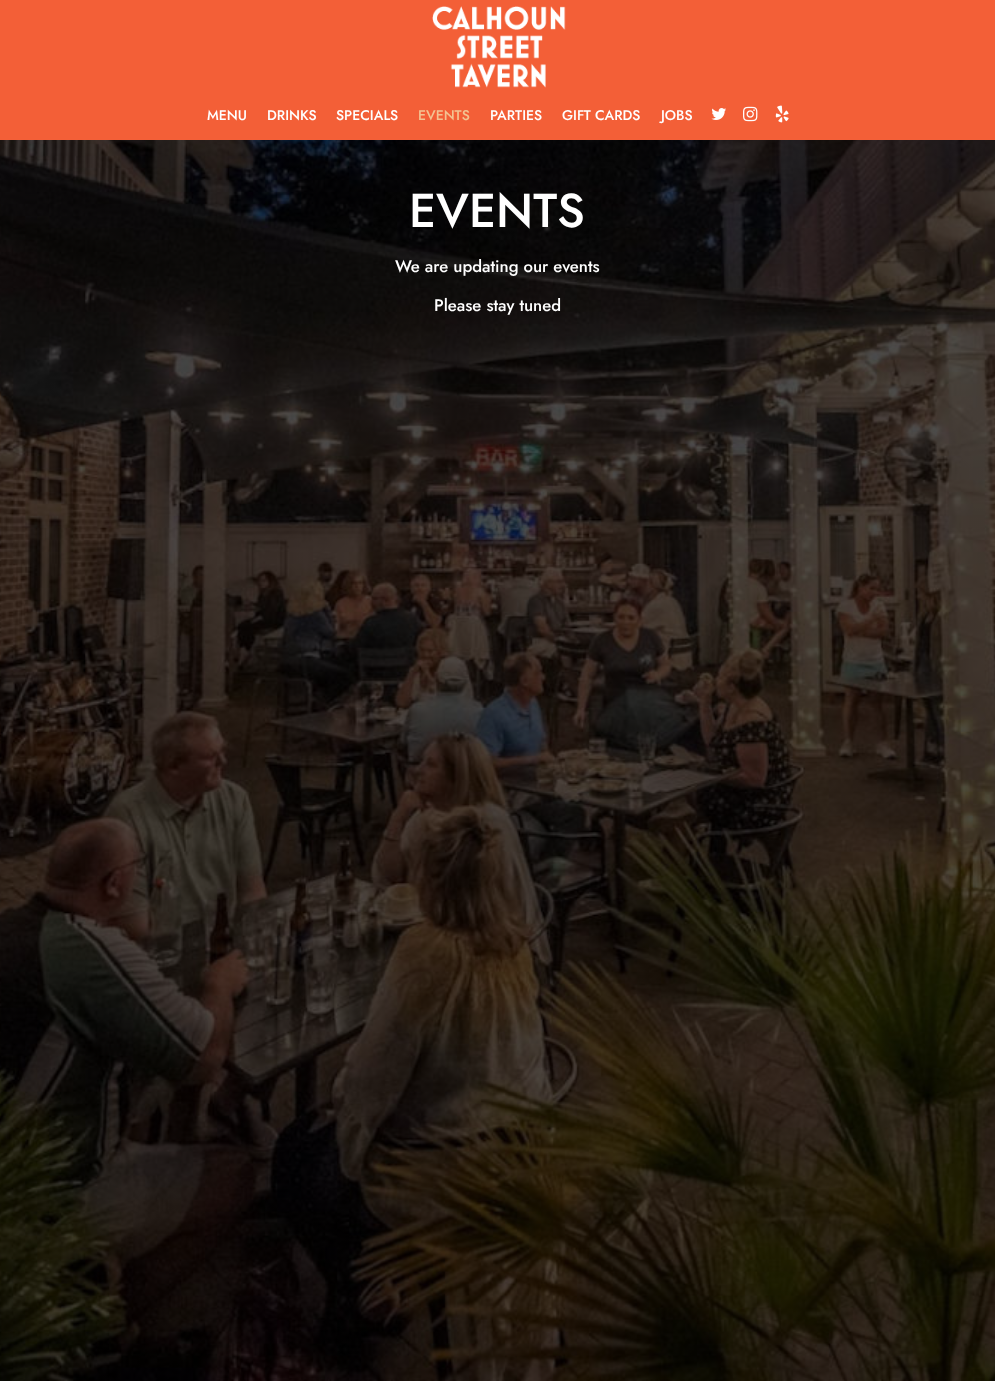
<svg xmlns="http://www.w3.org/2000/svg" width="995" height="1381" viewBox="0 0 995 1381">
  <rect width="100%" height="100%" fill="#fff"/>
  <image x="0" y="140" width="995" height="1241" href="img/1.png"/>
  <path d="M0 0h995v140H0z" fill="#f35f37"/>
  <image x="432" y="6" width="134" height="82" href="img/2.png"/>
  <image x="711" y="108" width="15" height="12" href="img/3.png"/>
  <image x="743" y="106" width="15" height="16" href="img/4.png"/>
  <image x="775" y="105" width="14" height="18" href="img/5.png"/>
  <g font-family="Jost" font-size="14" font-weight="500" fill="#fff">
    <text x="207" y="120">MENU</text>
    <text x="267" y="120">DRINKS</text>
    <text x="336" y="120">SPECIALS</text>
  </g>
  <text x="418" y="120" font-family="Jost" font-size="14" font-weight="500" fill="#f3c392">EVENTS</text>
  <g font-family="Jost" font-size="14" font-weight="500" fill="#fff">
    <text x="490" y="120">PARTIES</text>
    <text x="562" y="120">GIFT CARDS</text>
    <text x="661" y="120">JOBS</text>
  </g>
  <text x="409" y="227" font-family="Jost" font-size="47.5" font-weight="500" fill="#fff">EVENTS</text>
  <g font-family="Jost" font-size="16.75" font-weight="500" fill="#fff">
    <text x="395" y="272">We are updating our events</text>
    <text x="434" y="311">Please stay tuned</text>
  </g>
</svg>
